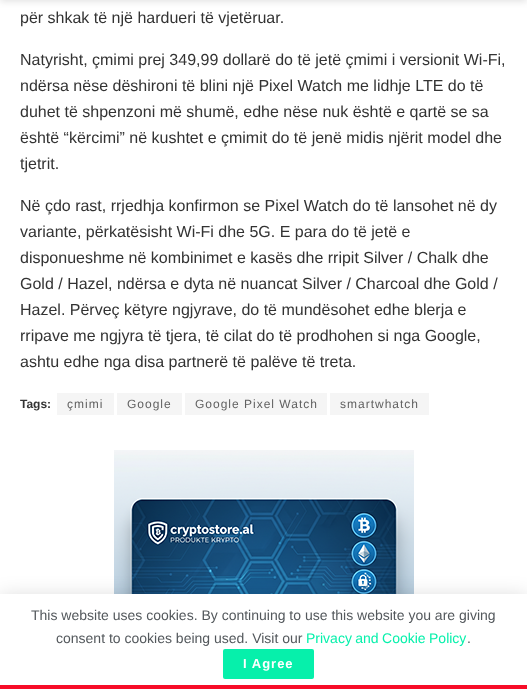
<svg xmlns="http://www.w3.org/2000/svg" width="527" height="689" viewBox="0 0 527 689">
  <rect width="100%" height="100%" fill="#fff"/>
  <path d="M0 -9h527v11H0z" fill="#0000001a" filter="blur(3px)"/>
  <path d="M57 393h57v22H57z" fill="#f5f5f5"/>
  <path d="M117 393h65v22H117z" fill="#f5f5f5"/>
  <path d="M185 393h142v22H185z" fill="#f5f5f5"/>
  <path d="M330 393h99v22H330z" fill="#f5f5f5"/>
  <image x="114" y="450" width="300" height="144" href="img/1.png"/>
  <path d="M0 596h527v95H0z" fill="#00000026" filter="blur(10px)"/>
  <path d="M0 594h527v95H0z" fill="#00000033" filter="blur(0.5px)"/>
  <path d="M0 594h527v91H0z" fill="#fff"/>
  <rect x="223" y="649" width="91" height="30" rx="2" fill="#06f0ab"/>
  <path d="M0 685h527v4H0z" fill="#f70d28"/>
  <g font-family="Liberation Sans" font-size="16" fill="#333">
    <text x="20" y="23">për shkak të një hardueri të vjetëruar.</text>
    <text x="20" y="65">Natyrisht, çmimi prej 349,99 dollarë do të jetë çmimi i versionit Wi-Fi,</text>
    <text x="20" y="91">ndërsa nëse dëshironi të blini një Pixel Watch me lidhje LTE do të</text>
    <text x="20" y="117">duhet të shpenzoni më shumë, edhe nëse nuk është e qartë se sa</text>
    <text x="20" y="143">është “kërcimi” në kushtet e çmimit do të jenë midis njërit model dhe</text>
    <text x="20" y="169">tjetrit.</text>
    <text x="20" y="211">Në çdo rast, rrjedhja konfirmon se Pixel Watch do të lansohet në dy</text>
    <text x="20" y="237">variante, përkatësisht Wi-Fi dhe 5G. E para do të jetë e</text>
    <text x="20" y="263">disponueshme në kombinimet e kasës dhe rripit Silver / Chalk dhe</text>
    <text x="20" y="289">Gold / Hazel, ndërsa e dyta në nuancat Silver / Charcoal dhe Gold /</text>
    <text x="20" y="315">Hazel. Përveç këtyre ngjyrave, do të mundësohet edhe blerja e</text>
    <text x="20" y="341">rripave me ngjyra të tjera, të cilat do të prodhohen si nga Google,</text>
    <text x="20" y="367">ashtu edhe nga disa partnerë të palëve të treta.</text>
  </g>
  <text x="20" y="408" font-family="Liberation Sans" font-size="12" font-weight="bold" fill="#333">Tags:</text>
  <g font-family="Liberation Sans" font-size="12" letter-spacing="1" fill="#616161">
    <text x="67" y="408">çmimi</text>
    <text x="127" y="408">Google</text>
    <text x="195" y="408">Google Pixel Watch</text>
    <text x="340" y="408">smartwhatch</text>
  </g>
  <g font-family="Liberation Sans" font-size="14" fill="#53585c">
    <text x="31" y="620">This website uses cookies. By continuing to use this website you are giving</text>
    <text x="56" y="643">consent to cookies being used. Visit our</text>
  </g>
  <text x="306" y="643" word-spacing="-0.5" font-family="Liberation Sans" font-size="14" fill="#06f0ab">Privacy and Cookie Policy</text>
  <text x="467" y="643" font-family="Liberation Sans" font-size="14" fill="#53585c">.</text>
  <text x="243" y="668" font-family="Liberation Sans" font-size="13" font-weight="bold" letter-spacing="1" fill="#fff">I Agree</text>
</svg>
